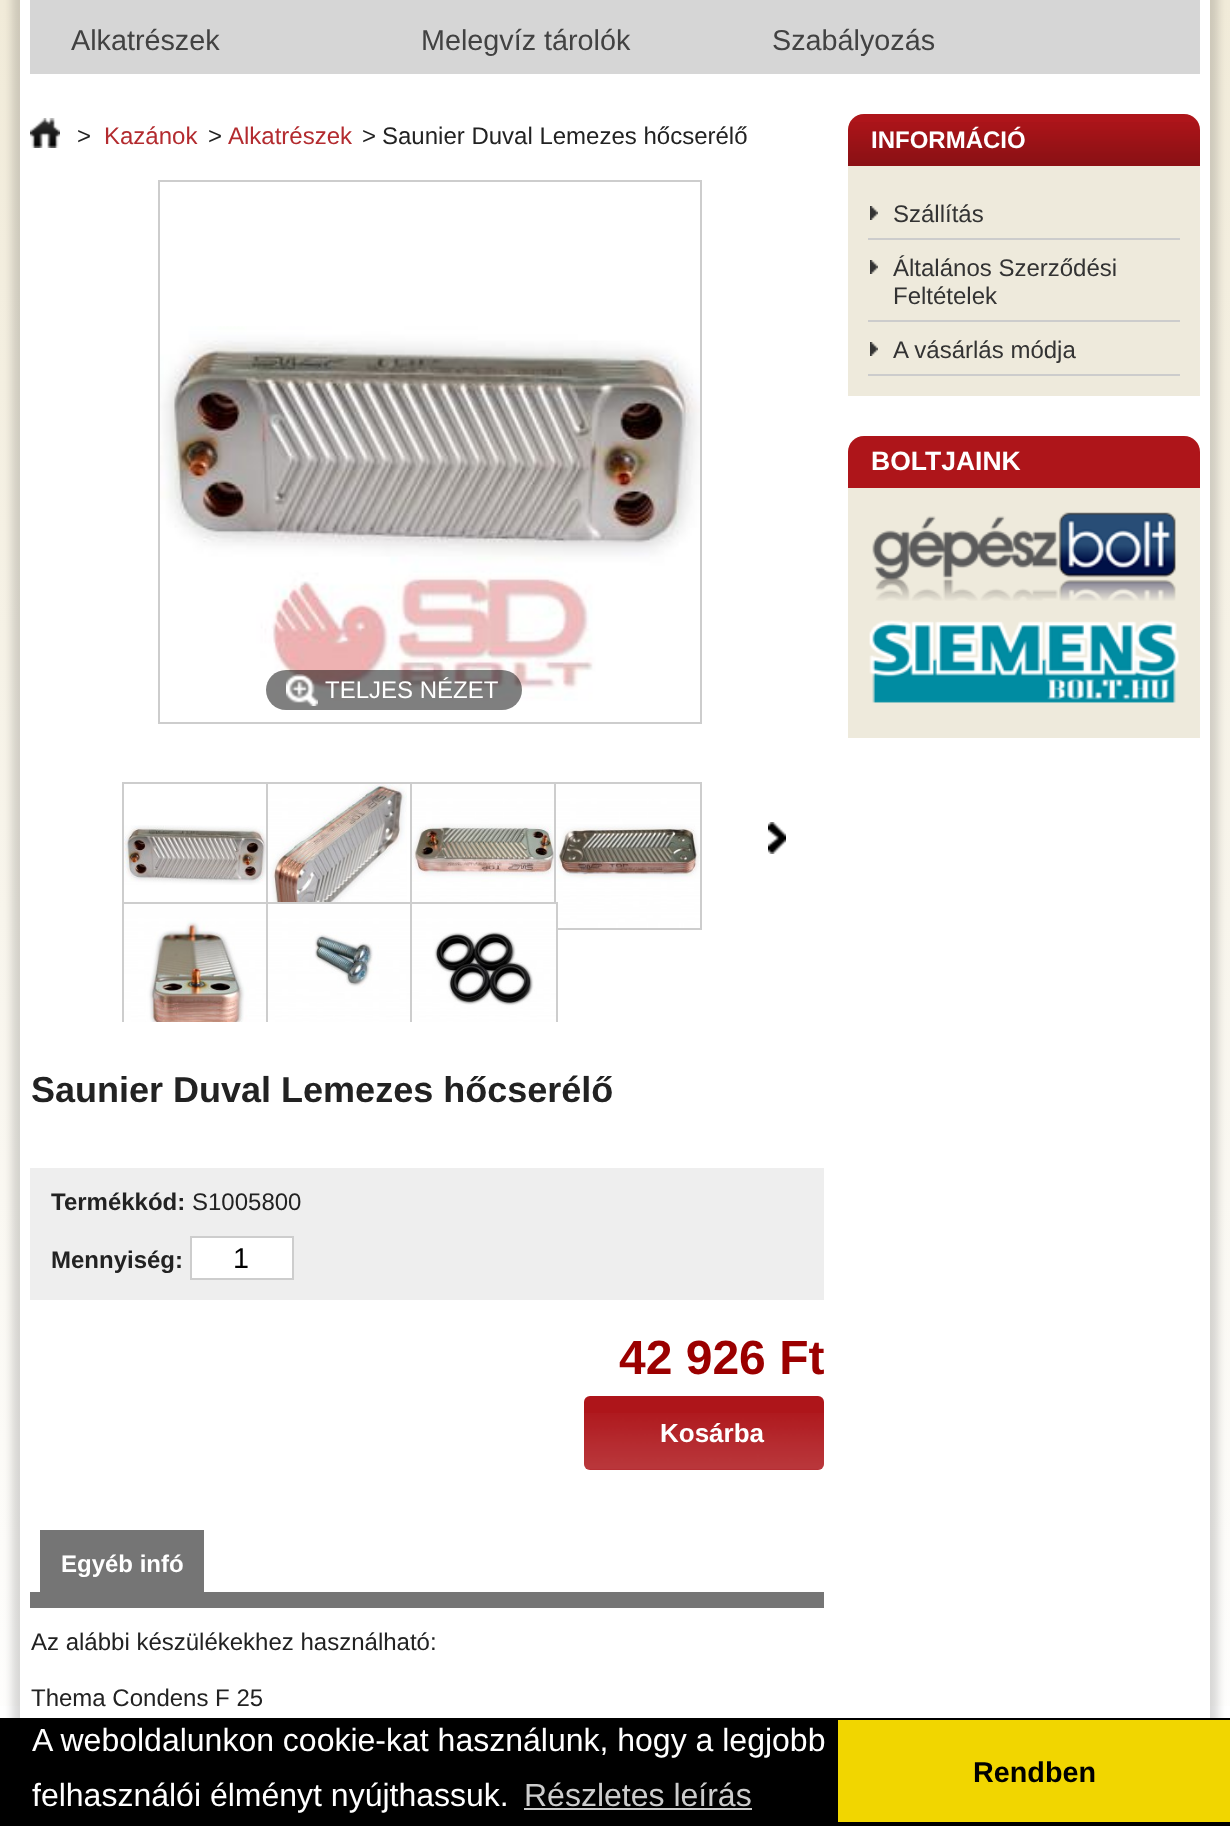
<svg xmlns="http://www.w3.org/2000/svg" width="1230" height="1826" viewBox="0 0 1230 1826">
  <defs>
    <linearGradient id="g1" gradientUnits="userSpaceOnUse" x1="615" y1="0" x2="615" y2="1826"><stop offset="0" stop-color="#f1ebd9"/><stop offset="1" stop-color="#fff"/></linearGradient>
    <clipPath id="clip1"><path d="M110 782h634v240H110z"/></clipPath>
  </defs>
  <rect width="100%" height="100%" fill="#fff"/>
  <path d="M0 0h1230v1706H0z" fill="url(#g1)"/>
  <path d="M12 -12h1206v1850H12z" fill="#00000026" filter="blur(4px)"/>
  <path d="M20 0h1190v1718H20z" fill="#fff"/>
  <path d="M30 0h1170v74H30z" fill="#d6d6d6"/>
  <image x="30" y="118" width="30" height="30" href="img/1.png"/>
  <path d="M159 181h542v542H159z" fill="none" stroke="#cdcdcd" stroke-width="2"/>
  <image x="160" y="326" width="540" height="375" href="img/2.png"/>
  <rect x="266" y="670" width="256" height="40" rx="20" fill="#00000080"/>
  <image x="286" y="674" width="32" height="32" href="img/3.png"/>
  <path d="M123 783h146v146H123z" fill="none" stroke="#cdcdcd" stroke-width="2"/>
  <image x="124" y="825" width="142" height="60" href="img/4.png"/>
  <path d="M267 783h146v146H267z" fill="none" stroke="#cdcdcd" stroke-width="2"/>
  <image x="268" y="784" width="139" height="118" href="img/5.png"/>
  <path d="M411 783h146v146H411z" fill="none" stroke="#cdcdcd" stroke-width="2"/>
  <image x="412" y="784" width="142" height="118" href="img/6.png"/>
  <path d="M555 783h146v146H555z" fill="none" stroke="#cdcdcd" stroke-width="2"/>
  <image x="556" y="784" width="144" height="144" href="img/7.png"/>
  <g clip-path="url(#clip1)">
    <path d="M123 903h146v146H123z" fill="none" stroke="#cdcdcd" stroke-width="2"/>
  </g>
  <image x="124" y="904" width="142" height="118" href="img/8.png"/>
  <g clip-path="url(#clip1)">
    <path d="M267 903h146v146H267z" fill="none" stroke="#cdcdcd" stroke-width="2"/>
  </g>
  <image x="268" y="904" width="142" height="118" href="img/9.png"/>
  <g clip-path="url(#clip1)">
    <path d="M411 903h146v146H411z" fill="none" stroke="#cdcdcd" stroke-width="2"/>
  </g>
  <image x="412" y="904" width="144" height="118" href="img/10.png"/>
  <image x="768" y="822" width="18" height="32" href="img/11.png"/>
  <path d="M30 1168h794v132H30z" fill="#eee"/>
  <path d="M191 1237h102v42H191z" fill="#fff" stroke="#cdcdcd" stroke-width="2"/>
  <rect x="584" y="1396" width="240" height="74" rx="6" fill="#ae151a"/>
  <image x="584" y="1413" width="240" height="57" href="img/12.png"/>
  <path d="M30 1592h794v16H30z" fill="#757575"/>
  <path d="M40 1530h164v62H40z" fill="#757575"/>
  <path d="M864 114H1184C1193 114 1200 121 1200 130V396H848V130C848 121 855 114 864 114Z" fill="#eeeadc"/>
  <path d="M864 114H1184C1193 114 1200 121 1200 130V166H848V130C848 121 855 114 864 114Z" fill="#ae151a"/>
  <image x="848" y="122" width="352" height="44" href="img/13.png"/>
  <path d="M868 238h312v2H868z" fill="#ccc"/>
  <image x="870" y="206" width="8" height="14" href="img/14.png"/>
  <path d="M868 320h312v2H868z" fill="#ccc"/>
  <image x="870" y="260" width="8" height="14" href="img/14.png"/>
  <path d="M868 374h312v2H868z" fill="#ccc"/>
  <image x="870" y="342" width="8" height="14" href="img/14.png"/>
  <path d="M864 436H1184C1193 436 1200 443 1200 452V738H848V452C848 443 855 436 864 436Z" fill="#eeeadc"/>
  <path d="M864 436H1184C1193 436 1200 443 1200 452V488H848V452C848 443 855 436 864 436Z" fill="#ae151a"/>
  <image x="872" y="512" width="304" height="89" href="img/15.png"/>
  <image x="869" y="620" width="310" height="83" href="img/16.png"/>
  <path d="M0 1718h1230v108H0z" fill="#000"/>
  <path d="M524 1808h228v2H524z" fill="#ccc"/>
  <path d="M838 1720h392v102H838z" fill="#f1d600"/>
  <g font-family="Liberation Sans" font-size="28.75" fill="#424242">
    <text x="71" y="50">Alkatrészek</text>
    <text x="421" y="50">Melegvíz tárolók</text>
    <text x="772" y="50">Szabályozás</text>
  </g>
  <text x="77" y="144" font-family="Liberation Sans" font-size="24" fill="#222">&gt;</text>
  <text x="104" y="144" font-family="Liberation Sans" font-size="24" fill="#b32b2f">Kazánok</text>
  <text x="208" y="144" font-family="Liberation Sans" font-size="24" fill="#222">&gt;</text>
  <text x="228" y="144" font-family="Liberation Sans" font-size="24" fill="#b32b2f">Alkatrészek</text>
  <g font-family="Liberation Sans" font-size="24" fill="#222">
    <text x="362" y="144">&gt;</text>
    <text x="382" y="144">Saunier Duval Lemezes hőcserélő</text>
  </g>
  <text x="325" y="698" font-family="Liberation Sans" font-size="24" fill="#fff">TELJES NÉZET</text>
  <text x="31" y="1102" font-family="Liberation Sans" font-size="36" font-weight="bold" fill="#222">Saunier Duval Lemezes hőcserélő</text>
  <text x="51" y="1210" font-family="Liberation Sans" font-size="24" font-weight="bold" fill="#222">Termékkód:</text>
  <text x="192" y="1210" font-family="Liberation Sans" font-size="24" fill="#222">S1005800</text>
  <text x="51" y="1268" font-family="Liberation Sans" font-size="24" font-weight="bold" fill="#222">Mennyiség:</text>
  <text x="233" y="1268" font-family="Liberation Sans" font-size="28.75" fill="#000">1</text>
  <text x="619" y="1374" font-family="Liberation Sans" font-size="48" font-weight="bold" fill="#9b0000">42 926 Ft</text>
  <text x="660" y="1442" font-family="Liberation Sans" font-size="26" font-weight="bold" fill="#fff">Kosárba</text>
  <text x="61" y="1572" font-family="Liberation Sans" font-size="24" font-weight="bold" fill="#fff">Egyéb infó</text>
  <g font-family="Liberation Sans" font-size="24" fill="#222">
    <text x="31" y="1650">Az alábbi készülékekhez használható:</text>
    <text x="31" y="1706">Thema Condens F 25</text>
  </g>
  <text x="871" y="148" font-family="Liberation Sans" font-size="24" font-weight="bold" fill="#fff">INFORMÁCIÓ</text>
  <g font-family="Liberation Sans" font-size="24" fill="#333">
    <text x="893" y="222">Szállítás</text>
    <text x="893" y="276">Általános Szerződési</text>
    <text x="893" y="304">Feltételek</text>
    <text x="893" y="358">A vásárlás módja</text>
  </g>
  <text x="871" y="470" font-family="Liberation Sans" font-size="26.5" font-weight="bold" fill="#fff">BOLTJAINK</text>
  <g font-family="Liberation Sans" font-size="32" fill="#fff">
    <text x="32" y="1751">A weboldalunkon cookie-kat használunk, hogy a legjobb</text>
    <text x="32" y="1806">felhasználói élményt nyújthassuk.</text>
  </g>
  <text x="524" y="1806" font-family="Liberation Sans" font-size="32" fill="#ccc">Részletes leírás</text>
  <text x="973" y="1782" font-family="Liberation Sans" font-size="28.75" font-weight="bold" fill="#000">Rendben</text>
</svg>
